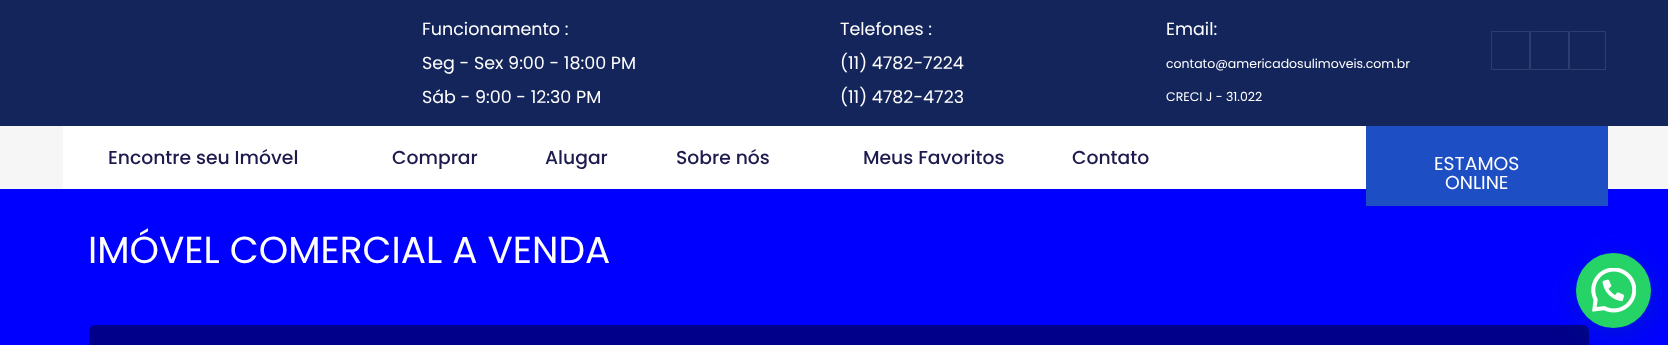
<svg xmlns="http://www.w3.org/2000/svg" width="1668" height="345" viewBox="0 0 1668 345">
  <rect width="100%" height="100%" fill="#f6f6f6"/>
  <path d="M0 0h1668v126H0z" fill="#13255b"/>
  <path d="M1491.5 31.5h38v38H1491.5z" fill="none" stroke="#2d3d6e"/>
  <path d="M1530.5 31.5h38v38H1530.5z" fill="none" stroke="#2d3d6e"/>
  <path d="M1569.5 31.5h36v38H1569.5z" fill="none" stroke="#2d3d6e"/>
  <path d="M63 126h1303v63H63z" fill="#fff"/>
  <path d="M0 189h1668v156H0z" fill="#00f"/>
  <path d="M1366 126h242v80H1366z" fill="#1e4ec4"/>
  <rect x="89" y="325" width="1500" height="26" rx="6" fill="#00008a"/>
  <rect x="1578" y="260" width="75" height="75" rx="37.5" fill="#075e543d" filter="blur(15px)"/>
  <circle cx="1613.5" cy="290.5" r="37.5" fill="#25d366"/>
  <image x="1591" y="268" width="45" height="45" href="img/1.png"/>
  <g font-family="Poppins" font-size="17.5" fill="#fff">
    <text x="422" y="35">Funcionamento :</text>
    <text x="422" y="69">Seg - Sex 9:00 - 18:00 PM</text>
    <text x="422" y="103">Sáb - 9:00 - 12:30 PM</text>
    <text x="840" y="35">Telefones :</text>
    <text x="840" y="69">(11) 4782-7224</text>
    <text x="840" y="103">(11) 4782-4723</text>
    <text x="1166" y="35">Email:</text>
  </g>
  <g font-family="Poppins" font-size="12.5" fill="#fff">
    <text x="1166" y="68">contato@americadosulimoveis.com.br</text>
    <text x="1166" y="101">CRECI J - 31.022</text>
  </g>
  <g font-family="Poppins" font-size="18.75" font-weight="500" fill="#1d1a4e">
    <text x="108" y="164">Encontre seu Imóvel</text>
    <text x="392" y="164">Comprar</text>
    <text x="545" y="164">Alugar</text>
    <text x="676" y="164">Sobre nós</text>
    <text x="863" y="164">Meus Favoritos</text>
    <text x="1072" y="164">Contato</text>
  </g>
  <g font-family="Poppins" font-size="18.75" fill="#fff">
    <text x="1434" y="170">ESTAMOS</text>
    <text x="1445" y="189">ONLINE</text>
  </g>
  <text x="88" y="263" font-family="Poppins" font-size="37.5" fill="#fff">IMÓVEL COMERCIAL A VENDA</text>
</svg>
